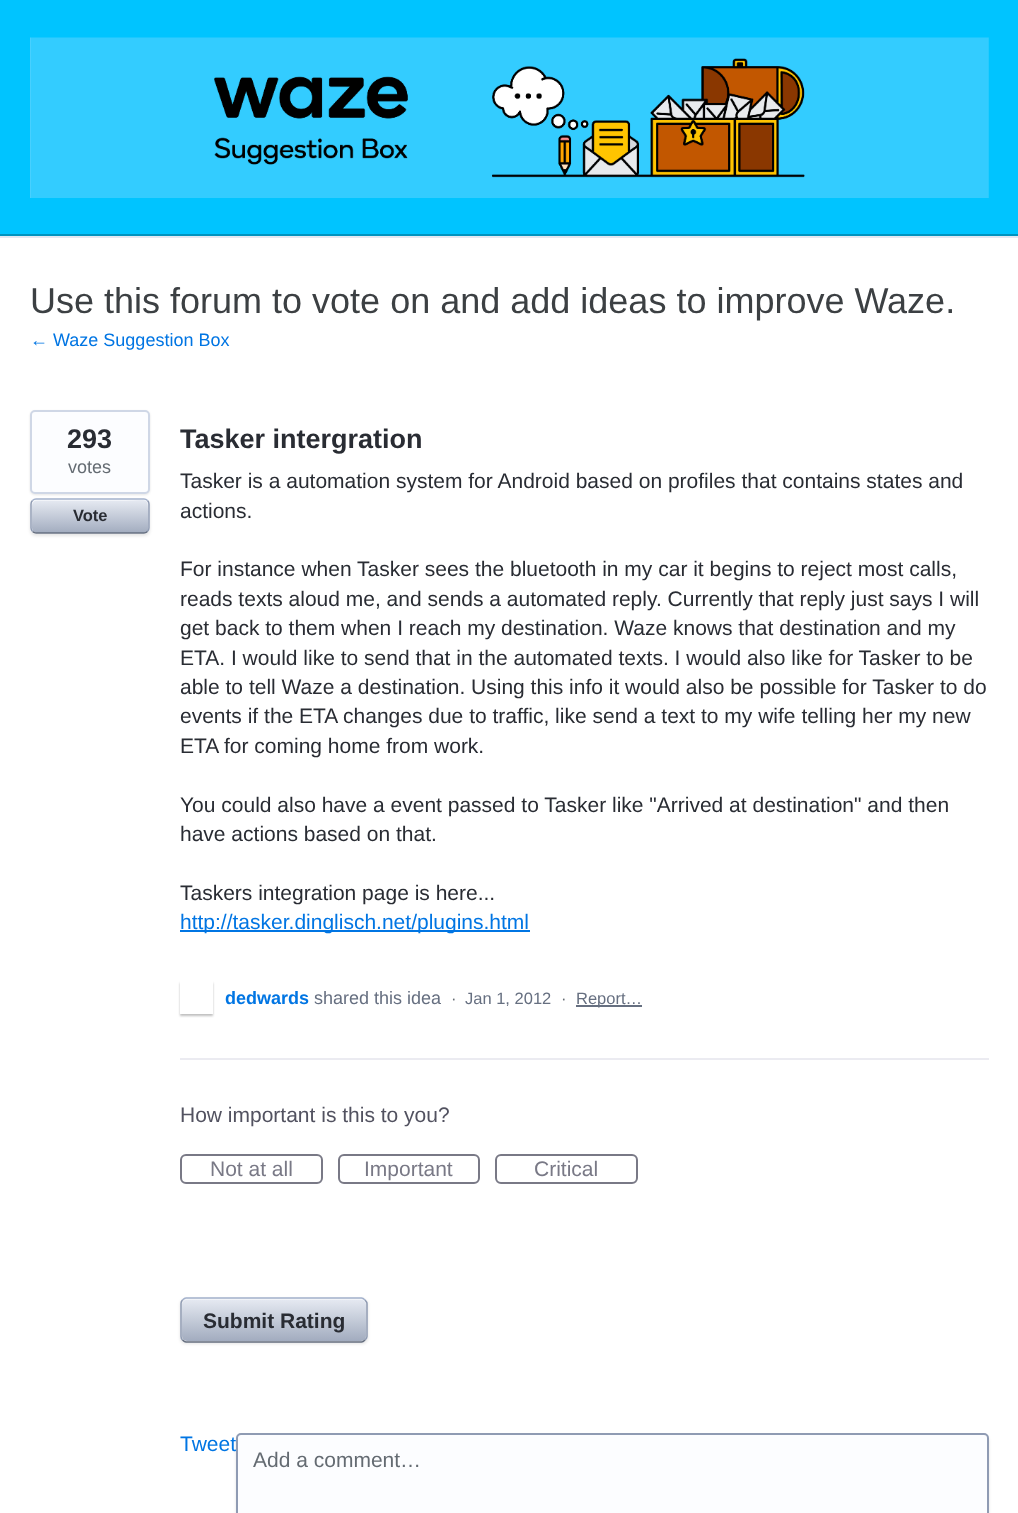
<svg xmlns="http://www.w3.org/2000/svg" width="1018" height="1513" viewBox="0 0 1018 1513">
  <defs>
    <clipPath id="clip1"><path d="M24 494H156V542H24ZM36 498H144C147.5 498 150 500.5 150 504V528C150 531.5 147.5 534 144 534H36C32.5 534 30 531.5 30 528V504C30 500.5 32.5 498 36 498Z" clip-rule="evenodd"/></clipPath>
    <linearGradient id="g1" gradientUnits="userSpaceOnUse" x1="32" y1="500" x2="32" y2="533"><stop offset="0" stop-color="#e6eaf2"/><stop offset="1" stop-color="#a2acbf"/></linearGradient>
    <clipPath id="clip2"><path d="M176 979H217V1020H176ZM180 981H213V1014H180Z" clip-rule="evenodd"/></clipPath>
    <linearGradient id="g2" gradientUnits="userSpaceOnUse" x1="182" y1="1299" x2="182" y2="1341"><stop offset="0" stop-color="#e6eaf2"/><stop offset="1" stop-color="#a2acbf"/></linearGradient>
  </defs>
  <rect width="100%" height="100%" fill="#fff"/>
  <path d="M0 0h1018v234H0z" fill="#00c4ff"/>
  <path d="M0 234h1018v2H0z" fill="#0093bf"/>
  <image x="30" y="37" width="959" height="161" href="img/1.png"/>
  <path d="M0 236h1018v2H0z" fill="#e3e8f2"/>
  <rect x="30" y="411" width="120" height="84" rx="5" fill="#0000001a" filter="blur(1px)"/>
  <rect x="31" y="411" width="118" height="82" rx="4" fill="#fcfdff" stroke="#cfd7e6" stroke-width="2"/>
  <g clip-path="url(#clip1)">
    <rect x="30" y="500" width="120" height="36" rx="6" fill="#0000001a" filter="blur(1.5px)"/>
  </g>
  <rect x="32" y="500" width="117" height="33" rx="5" fill="url(#g1)"/>
  <path d="M36 501H126C147 501 148 496 148 514V531C150 528 149 520 149 516C149 496 150 500 126 500H55C50 500 32 495 32 506C32 503 34 501 36 501Z" fill="#ffffff80"/>
  <path d="M32.5 500.5C33.5 499.5 34.5 499 36 499H144C145.5 499 146.5 499.5 147.5 500.5" fill="none" stroke="#a3b1cc" stroke-width="1.5"/>
  <path d="M147.5 500.5C148.5 501.5 149 502.5 149 504V528C149 529.5 148.5 530.5 147.5 531.5" fill="none" stroke="#8f9bb3" stroke-width="1.5"/>
  <path d="M147.5 531.5C146.5 532.5 145.5 533 144 533H36C34.5 533 33.5 532.5 32.5 531.5" fill="none" stroke="#666f80" stroke-width="1.5"/>
  <path d="M32.5 531.5C31.5 530.5 31 529.5 31 528V504C31 502.5 31.5 501.5 32.5 500.5" fill="none" stroke="#8f9bb3" stroke-width="1.5"/>
  <path d="M180 930h350v2H180z" fill="#0075e3"/>
  <g clip-path="url(#clip2)">
    <path d="M180 983h33v33H180z" fill="#00000040" filter="blur(1px)"/>
  </g>
  <path d="M576 1005h66v2H576z" fill="#666f80"/>
  <path d="M180 1058h809v2H180z" fill="#ebebf1"/>
  <rect x="181" y="1155" width="141" height="28" rx="5" fill="none" stroke="#797986" stroke-width="2"/>
  <rect x="339" y="1155" width="140" height="28" rx="5" fill="none" stroke="#797986" stroke-width="2"/>
  <rect x="496" y="1155" width="141" height="28" rx="5" fill="none" stroke="#797986" stroke-width="2"/>
  <rect x="180" y="1299" width="188" height="45" rx="6" fill="#0000001a" filter="blur(1.5px)"/>
  <rect x="182" y="1299" width="184" height="42" rx="5" fill="url(#g2)"/>
  <path d="M186 1300H362C364 1300 366 1303 366 1305C366 1302 365 1300 362 1299H186C183 1300 182 1302 182 1305C182 1303 184 1300 186 1300Z" fill="#ffffff80"/>
  <path d="M182.5 1300C183.5 1299 184.5 1298 186 1298H361.5C363 1298 364 1299 365 1300" fill="none" stroke="#a3b1cc" stroke-width="1.5"/>
  <path d="M365 1300C366 1301 367 1302 367 1303.5V1336.5C367 1338 366 1339 365 1340" fill="none" stroke="#8f9bb3" stroke-width="1.5"/>
  <path d="M365 1340C364 1341 363 1342 361.5 1342H186C184.5 1342 183.5 1341 182.5 1340" fill="none" stroke="#666f80" stroke-width="1.5"/>
  <path d="M182.5 1340C181.5 1339 181 1338 181 1336.5V1303.5C181 1302 181.5 1301 182.5 1300" fill="none" stroke="#8f9bb3" stroke-width="1.5"/>
  <rect x="236" y="1436" width="753" height="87" rx="5" fill="#0000001a" filter="blur(1.5px)"/>
  <rect x="237" y="1434" width="751" height="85" rx="4" fill="#fcfdff" stroke="#8f9bb3" stroke-width="2"/>
  <text x="30" y="313" font-family="Liberation Sans" font-size="36" fill="#3c4043">Use this forum to vote on and add ideas to improve Waze.</text>
  <text x="30" y="346" font-family="Liberation Sans" font-size="18" fill="#0075e3">← Waze Suggestion Box</text>
  <text x="67" y="448" font-family="Liberation Sans" font-size="27" font-weight="bold" fill="#292c33">293</text>
  <text x="68" y="473" font-family="Liberation Sans" font-size="18" fill="#646b72">votes</text>
  <text x="73" y="521" font-family="Liberation Sans" font-size="16.5" font-weight="bold" fill="#292c33">Vote</text>
  <text x="180" y="448" font-family="Liberation Sans" font-size="27" font-weight="bold" fill="#292c33">Tasker intergration</text>
  <g font-family="Liberation Sans" font-size="21" fill="#292c33">
    <text x="180" y="488">Tasker is a automation system for Android based on profiles that contains states and</text>
    <text x="180" y="518">actions.</text>
    <text x="180" y="576">For instance when Tasker sees the bluetooth in my car it begins to reject most calls,</text>
    <text x="180" y="606">reads texts aloud me, and sends a automated reply. Currently that reply just says I will</text>
    <text x="180" y="635">get back to them when I reach my destination. Waze knows that destination and my</text>
    <text x="180" y="665">ETA. I would like to send that in the automated texts. I would also like for Tasker to be</text>
    <text x="180" y="694">able to tell Waze a destination. Using this info it would also be possible for Tasker to do</text>
    <text x="180" y="723">events if the ETA changes due to traffic, like send a text to my wife telling her my new</text>
    <text x="180" y="753">ETA for coming home from work.</text>
    <text x="180" y="812">You could also have a event passed to Tasker like "Arrived at destination" and then</text>
    <text x="180" y="841">have actions based on that.</text>
    <text x="180" y="900">Taskers integration page is here...</text>
  </g>
  <text x="180" y="929" font-family="Liberation Sans" font-size="21" fill="#0075e3">http://tasker.dinglisch.net/plugins.html</text>
  <text x="225" y="1004" font-family="Liberation Sans" font-size="18" font-weight="bold" fill="#0075e3">dedwards</text>
  <text x="314" y="1004" font-family="Liberation Sans" font-size="18" fill="#666f80">shared this idea</text>
  <text x="451" y="1004" font-family="Liberation Sans" font-size="16.5" fill="#646b72">·</text>
  <text x="465" y="1004" font-family="Liberation Sans" font-size="16.5" fill="#666f80">Jan 1, 2012</text>
  <text x="561" y="1004" font-family="Liberation Sans" font-size="16.5" fill="#646b72">·</text>
  <text x="576" y="1004" font-family="Liberation Sans" font-size="16.5" fill="#666f80">Report…</text>
  <text x="180" y="1122" font-family="Liberation Sans" font-size="21" fill="#525260">How important is this to you?</text>
  <g font-family="Liberation Sans" font-size="21" fill="#797986">
    <text x="210" y="1176">Not at all</text>
    <text x="364" y="1176">Important</text>
    <text x="534" y="1176">Critical</text>
  </g>
  <text x="203" y="1328" font-family="Liberation Sans" font-size="21" font-weight="bold" fill="#292c33">Submit Rating</text>
  <text x="180" y="1451" font-family="Liberation Sans" font-size="21" fill="#0075e3">Tweet</text>
  <text x="253" y="1467" font-family="Liberation Sans" font-size="21" fill="#646b72">Add a comment…</text>
</svg>
